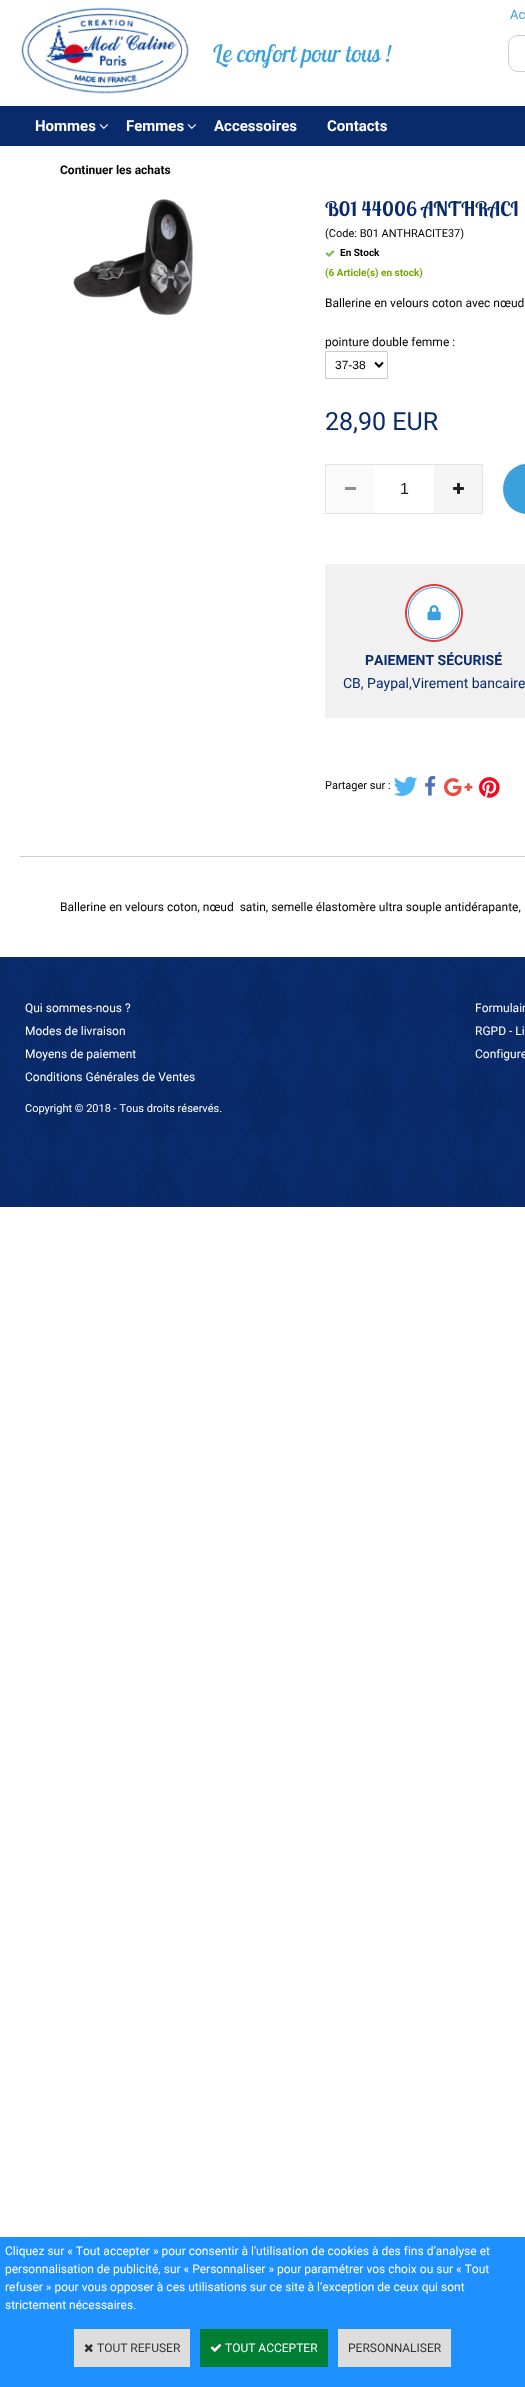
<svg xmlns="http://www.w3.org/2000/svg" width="525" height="2387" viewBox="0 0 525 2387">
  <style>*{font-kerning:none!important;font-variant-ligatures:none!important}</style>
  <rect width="100%" height="100%" fill="#fff"/>
  <path d="M0 106h525v40H0z" fill="#092b6b"/>
  <rect x="508.5" y="35.5" width="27" height="36" rx="9.5" fill="none" stroke="#ccc"/>
  <image x="21" y="7" width="168" height="87" href="img/1.png"/>
  <image x="99" y="124" width="9" height="5" href="img/2.png"/>
  <image x="187" y="124" width="9" height="5" href="img/2.png"/>
  <image x="73" y="199" width="120" height="116" href="img/3.png"/>
  <image x="325" y="250" width="10" height="7" href="img/4.png"/>
  <path d="M325.5 351.5h62v27H325.5z" fill="none" stroke="#ccc"/>
  <path d="M375 362.5L379 366.5L383 362.5" fill="none" stroke="#000" stroke-width="2"/>
  <path d="M325.5 464.5h157v49H325.5z" fill="none" stroke="#e3e3e3"/>
  <path d="M326 465h48v48H326z" fill="#fafafa"/>
  <path d="M345 487h11v3H345z" fill="#8e8e8e"/>
  <path d="M434 465h48v48H434z" fill="#f5f5f5"/>
  <image x="453" y="483" width="11" height="11" href="img/5.png"/>
  <rect x="503" y="464" width="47" height="50" rx="25" fill="#3ba1dc"/>
  <path d="M325 564h200v154H325z" fill="#f1f1f1"/>
  <image x="405" y="584" width="58" height="58" href="img/6.png"/>
  <image x="393" y="776" width="25" height="20" href="img/7.png"/>
  <image x="425" y="776" width="11" height="20" href="img/8.png"/>
  <image x="444" y="778" width="29" height="19" href="img/9.png"/>
  <image x="479" y="777" width="21" height="21" href="img/10.png"/>
  <path d="M20 856h505v1H20z" fill="#ccc"/>
  <path d="M0 957h525v1H0z" fill="#092b6b"/>
  <image x="0" y="958" width="525" height="249" href="img/11.png"/>
  <path d="M0 2237h525v150H0z" fill="#1e90ff"/>
  <path d="M74 2329h116v38H74z" fill="#ddd"/>
  <image x="84" y="2344" width="9" height="9" href="img/12.png"/>
  <path d="M200 2329h128v38H200z" fill="#007e33"/>
  <image x="210" y="2344" width="12" height="8" href="img/13.png"/>
  <path d="M338 2329h113v38H338z" fill="#ddd"/>
  <text x="510" y="19" font-family="Roboto" font-size="13" fill="#3ba1dc">Ac</text>
  <text x="212" y="62" font-family="Lobster Two" font-size="24" font-style="italic" fill="#3ba1dc">Le confort pour tous !</text>
  <g font-family="Roboto" font-size="15" font-weight="bold" fill="#fff">
    <text x="35" y="131">Hommes</text>
    <text x="126" y="131">Femmes</text>
    <text x="214" y="131">Accessoires</text>
    <text x="327" y="131">Contacts</text>
  </g>
  <text x="60" y="174" font-family="Roboto" font-size="12" font-weight="bold" fill="#000">Continuer les achats</text>
  <text x="325" y="216" font-family="Lobster Two" font-size="20" font-weight="bold" fill="#092b6b">B01 44006 ANTHRACI</text>
  <text x="325" y="237" font-family="Roboto" font-size="11" fill="#000">(Code: B01 ANTHRACITE37)</text>
  <text x="340" y="256" font-family="Roboto" font-size="10" font-weight="bold" fill="#000">En Stock</text>
  <text x="325" y="276" font-family="Roboto" font-size="10" font-weight="bold" fill="#6fa600">(6 Article(s) en stock)</text>
  <g font-family="Roboto" font-size="12" fill="#000">
    <text x="325" y="307">Ballerine en velours coton avec nœud</text>
    <text x="325" y="346">pointure double femme :</text>
  </g>
  <text x="335" y="369" font-family="Liberation Sans" font-size="12" fill="#000">37-38</text>
  <text x="325" y="430" font-family="Roboto" font-size="25" fill="#092b6b">28,90 EUR</text>
  <text x="400" y="494" font-family="Liberation Sans" font-size="16" fill="#212121">1</text>
  <text x="365" y="665" font-family="Roboto" font-size="14" font-weight="bold" fill="#092b6b">PAIEMENT SÉCURISÉ</text>
  <text x="343" y="688" font-family="Roboto" font-size="14" fill="#092b6b">CB, Paypal,Virement bancaire</text>
  <text x="325" y="789" font-family="Roboto" font-size="11" fill="#000">Partager sur :</text>
  <text x="60" y="911" font-family="Roboto" font-size="12" fill="#000" xml:space="preserve">Ballerine en velours coton, nœud  satin, semelle élastomère ultra souple antidérapante,</text>
  <g font-family="Roboto" font-size="12" fill="#fff">
    <text x="25" y="1012">Qui sommes-nous ?</text>
    <text x="25" y="1035">Modes de livraison</text>
    <text x="25" y="1058">Moyens de paiement</text>
    <text x="25" y="1081">Conditions Générales de Ventes</text>
    <text x="475" y="1012">Formulair</text>
    <text x="475" y="1035">RGPD - Li</text>
    <text x="475" y="1058">Configure</text>
  </g>
  <text x="25" y="1112" font-family="Roboto" font-size="11" fill="#fff">Copyright © 2018 - Tous droits réservés.</text>
  <g font-family="Roboto" font-size="12" fill="#fff">
    <text x="5" y="2255">Cliquez sur « Tout accepter » pour consentir à l'utilisation de cookies à des fins d’analyse et</text>
    <text x="5" y="2273">personnalisation de publicité, sur « Personnaliser » pour paramétrer vos choix ou sur « Tout</text>
    <text x="5" y="2291">refuser » pour vous opposer à ces utilisations sur ce site à l’exception de ceux qui sont</text>
    <text x="5" y="2309">strictement nécessaires.</text>
  </g>
  <text x="97" y="2352" font-family="Roboto" font-size="12" fill="#333">TOUT REFUSER</text>
  <text x="225" y="2352" font-family="Roboto" font-size="12" fill="#fff">TOUT ACCEPTER</text>
  <text x="348" y="2352" font-family="Roboto" font-size="12" fill="#333">PERSONNALISER</text>
</svg>
